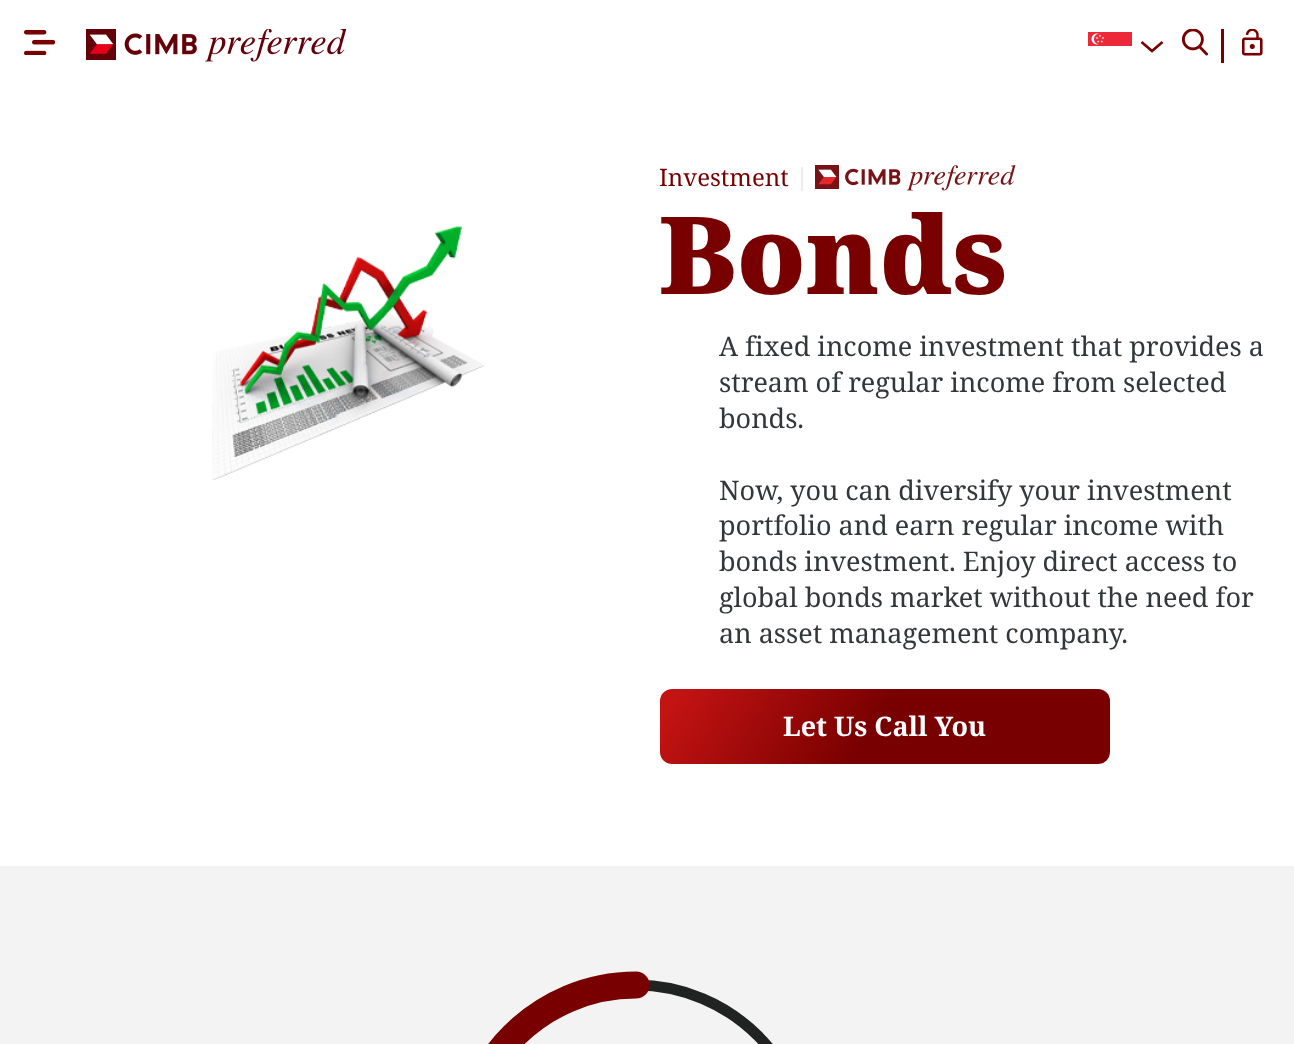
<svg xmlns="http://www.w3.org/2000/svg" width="1294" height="1044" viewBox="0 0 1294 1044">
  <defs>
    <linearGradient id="g1" gradientUnits="userSpaceOnUse" x1="706" y1="614" x2="1064" y2="838"><stop offset="0.04" stop-color="#c41313"/><stop offset="0.48" stop-color="#780000"/></linearGradient>
  </defs>
  <rect width="100%" height="100%" fill="#f3f3f3"/>
  <path d="M0 0h1294v866H0z" fill="#fff"/>
  <image x="24" y="30" width="31" height="25" href="img/1.png"/>
  <image x="86" y="29" width="261" height="33" href="img/2.png"/>
  <image x="1088" y="32" width="44" height="14" href="img/3.png"/>
  <path d="M1162.5 42L1152 51L1141.5 42" fill="none" stroke="#780000" stroke-width="2.6"/>
  <path d="M1221 29h3v34H1221z" fill="#780000"/>
  <image x="1182" y="29" width="26" height="27" href="img/4.png"/>
  <image x="1242" y="29" width="21" height="27" href="img/5.png"/>
  <image x="212" y="226" width="273" height="254" href="img/6.png"/>
  <path d="M801 167h2v24H801z" fill="#ededed"/>
  <image x="815" y="165" width="201" height="26" href="img/7.png"/>
  <rect x="660" y="689" width="450" height="75" rx="12" fill="url(#g1)"/>
  <path d="M635.5 985C731 985 809 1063 809 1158.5" fill="none" stroke="#212323" stroke-width="10.9" stroke-linecap="square"/>
  <path d="M462.5 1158.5C462.5 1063 540.5 985 636 985" fill="none" stroke="#780000" stroke-width="27.2" stroke-linecap="round"/>
  <text x="659" y="186" font-family="Noto Serif" font-size="24" fill="#780000">Investment</text>
  <text x="659" y="294" font-family="Noto Serif" font-size="108" font-weight="900" fill="#780000">Bonds</text>
  <g font-family="Noto Serif" font-size="27" fill="#333739">
    <text x="719" y="356">A fixed income investment that provides a</text>
    <text x="719" y="392">stream of regular income from selected</text>
    <text x="719" y="428">bonds.</text>
    <text x="719" y="500">Now, you can diversify your investment</text>
    <text x="719" y="535">portfolio and earn regular income with</text>
    <text x="719" y="571">bonds investment. Enjoy direct access to</text>
    <text x="719" y="607">global bonds market without the need for</text>
    <text x="719" y="643">an asset management company.</text>
  </g>
  <text x="783" y="736" font-family="Noto Serif" font-size="27" font-weight="bold" fill="#fff">Let Us Call You</text>
</svg>
